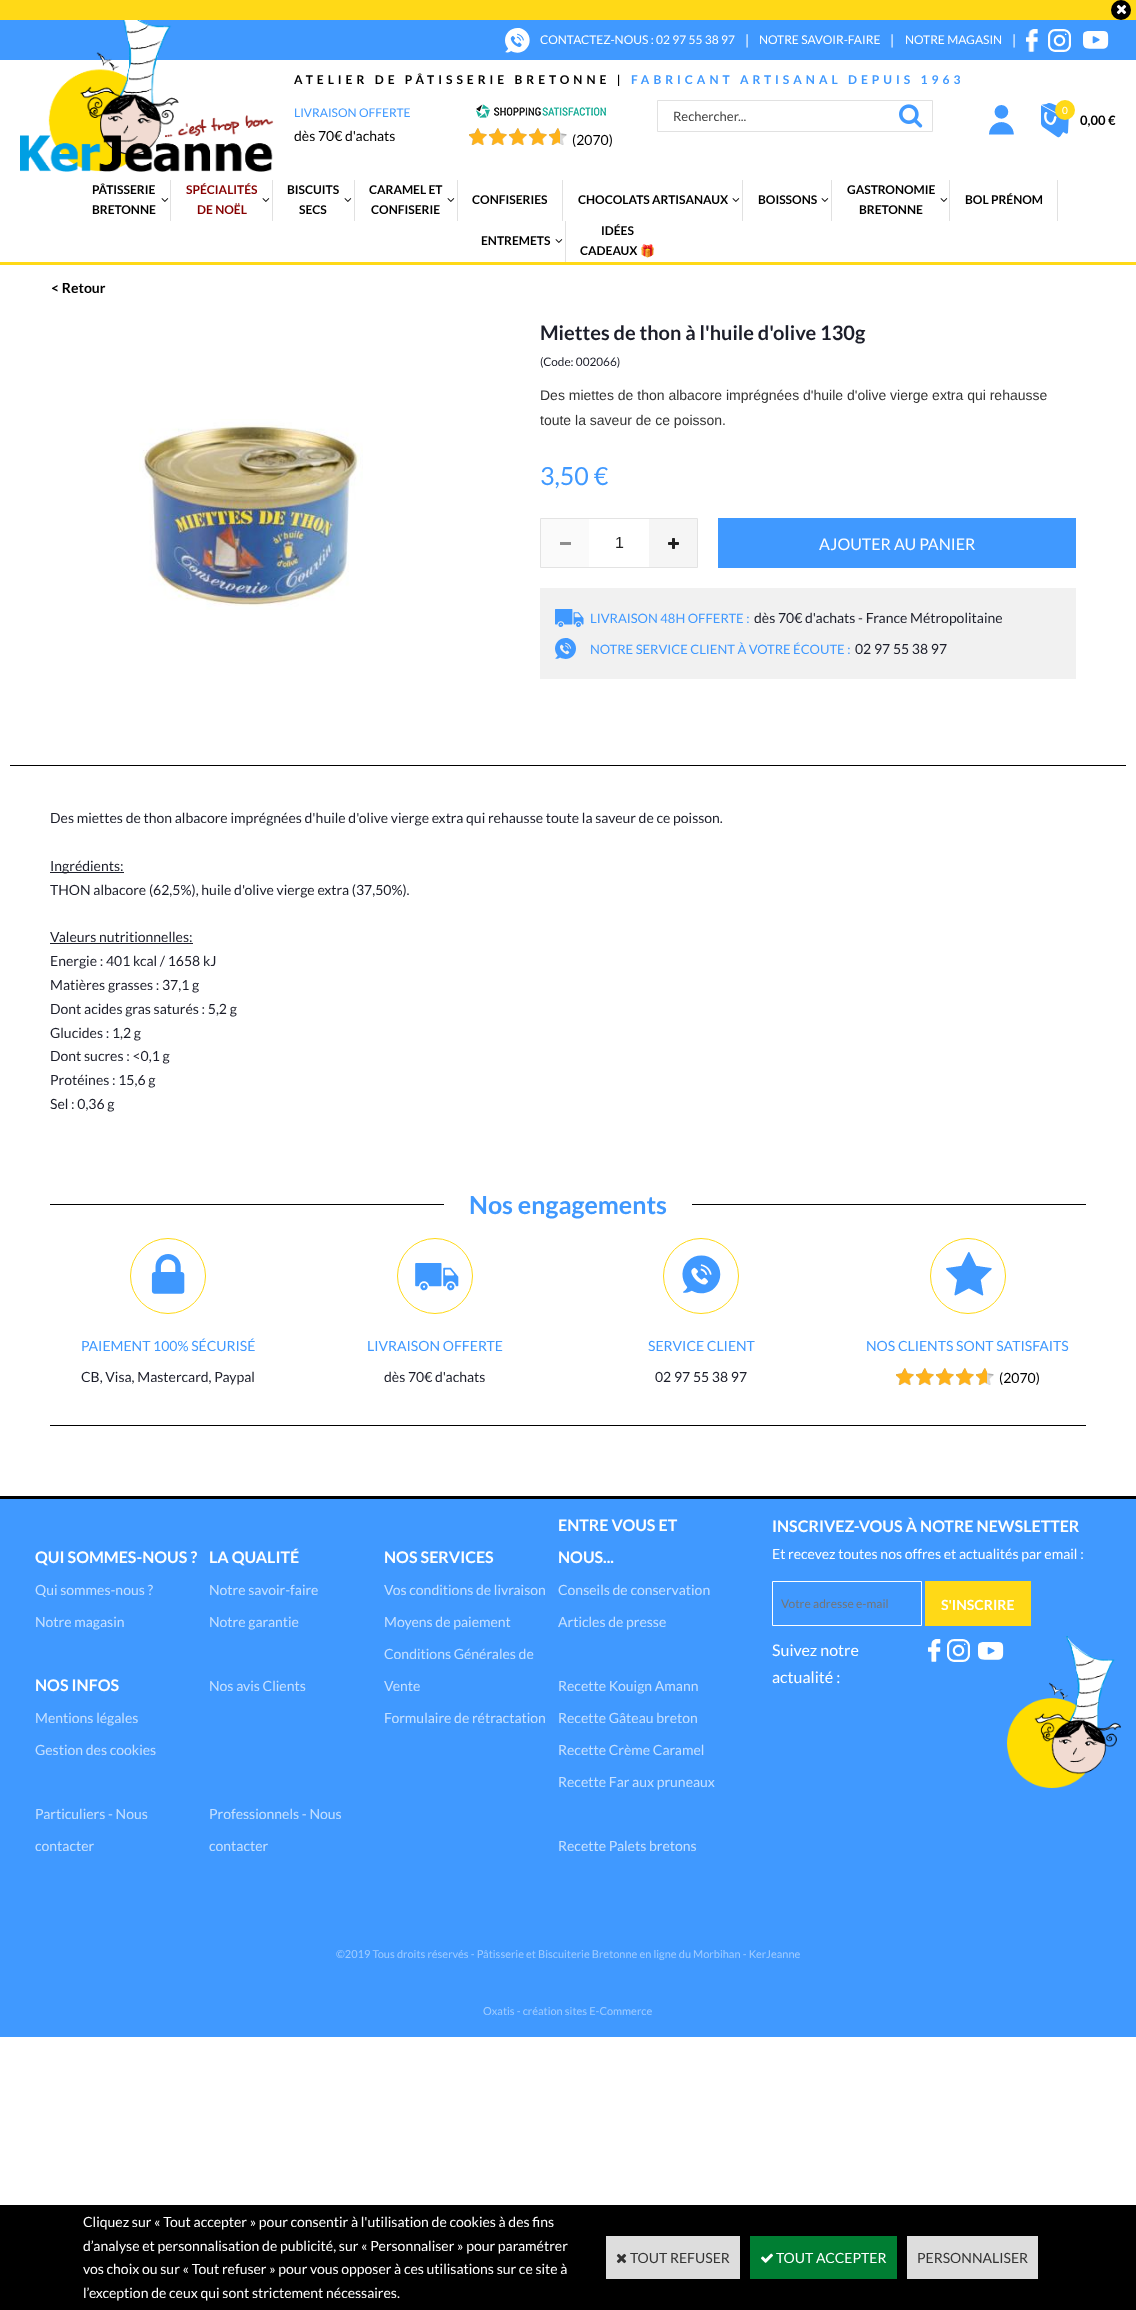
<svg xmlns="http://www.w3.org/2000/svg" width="1136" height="2310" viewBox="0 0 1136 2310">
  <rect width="100%" height="100%" fill="#fff"/>
  <path d="M0 0h1136v20H0z" fill="#ffd917"/>
  <circle cx="1121" cy="10" r="10" fill="#000"/>
  <image x="1116" y="4" width="11" height="11" href="img/1.png"/>
  <path d="M0 20h1136v40H0z" fill="#4099ff"/>
  <path d="M0 262h1136v3H0z" fill="#ffd917"/>
  <image x="20" y="20" width="254" height="152" href="img/2.png"/>
  <image x="505" y="28" width="25" height="25" href="img/3.png"/>
  <image x="1026" y="29" width="12" height="23" href="img/4.png"/>
  <image x="1048" y="29" width="23" height="23" href="img/5.png"/>
  <image x="1083" y="31" width="26" height="18" href="img/6.png"/>
  <path d="M657.5 100.5h275v31H657.5z" fill="none" stroke="#e1e1e1"/>
  <image x="899" y="104" width="24" height="24" href="img/7.png"/>
  <image x="989" y="105" width="25" height="30" href="img/8.png"/>
  <image x="1041" y="103" width="28" height="35" href="img/9.png"/>
  <circle cx="1065" cy="110" r="10" fill="#ffd917"/>
  <image x="476" y="104" width="130" height="14" href="img/10.png"/>
  <image x="469" y="128" width="98" height="17" href="img/11.png"/>
  <image x="469" y="128" width="91" height="17" href="img/12.png"/>
  <path d="M170 180h1v41H170z" fill="#e1e1e1"/>
  <image x="161" y="198" width="8" height="4" href="img/13.png"/>
  <path d="M272 180h1v41H272z" fill="#e1e1e1"/>
  <image x="262" y="198" width="8" height="4" href="img/13.png"/>
  <path d="M354 180h1v41H354z" fill="#e1e1e1"/>
  <image x="344" y="198" width="8" height="4" href="img/13.png"/>
  <path d="M457 180h1v41H457z" fill="#e1e1e1"/>
  <image x="447" y="198" width="8" height="4" href="img/13.png"/>
  <path d="M562 180h1v41H562z" fill="#e1e1e1"/>
  <path d="M742 180h1v41H742z" fill="#e1e1e1"/>
  <image x="732" y="198" width="8" height="4" href="img/13.png"/>
  <path d="M831 180h1v41H831z" fill="#e1e1e1"/>
  <image x="821" y="198" width="8" height="4" href="img/13.png"/>
  <path d="M949 180h1v41H949z" fill="#e1e1e1"/>
  <image x="940" y="198" width="8" height="4" href="img/13.png"/>
  <path d="M1057 180h1v41H1057z" fill="#e1e1e1"/>
  <path d="M565 221h1v41H565z" fill="#e1e1e1"/>
  <image x="555" y="239" width="8" height="4" href="img/13.png"/>
  <image x="139" y="419" width="224" height="191" href="img/14.png"/>
  <path d="M540.5 518.5h157v49H540.5z" fill="none" stroke="#e3e3e3"/>
  <path d="M541 519h48v48H541z" fill="#fafafa"/>
  <path d="M560 542h11v3H560z" fill="#8e8e8e"/>
  <path d="M649 519h48v48H649z" fill="#f5f5f5"/>
  <image x="668" y="538" width="11" height="11" href="img/15.png"/>
  <path d="M718 518h358v50H718z" fill="#4099ff"/>
  <path d="M540 588h536v91H540z" fill="#f1f1f1"/>
  <image x="555" y="609" width="29" height="18" href="img/16.png"/>
  <image x="555" y="638" width="21" height="21" href="img/17.png"/>
  <path d="M10 765h1116v1H10z" fill="#000"/>
  <path d="M50 872h74v1H50z" fill="#1c1e2a"/>
  <path d="M50 943h143v1H50z" fill="#1c1e2a"/>
  <path d="M50 1425h1036v1H50z" fill="#000"/>
  <path d="M50 1204h1036v1H50z" fill="#000"/>
  <path d="M444 1204h248v1H444z" fill="#fff"/>
  <image x="130" y="1238" width="76" height="76" href="img/18.png"/>
  <image x="397" y="1238" width="76" height="76" href="img/19.png"/>
  <image x="663" y="1238" width="76" height="76" href="img/20.png"/>
  <image x="930" y="1238" width="76" height="76" href="img/21.png"/>
  <image x="896" y="1368" width="98" height="17" href="img/11.png"/>
  <image x="896" y="1368" width="91" height="17" href="img/12.png"/>
  <path d="M0 1499h1136v538H0z" fill="#4099ff"/>
  <path d="M0 1496h1136v3H0z" fill="#000"/>
  <path d="M772.5 1581.5h149v44H772.5z" fill="none" stroke="#fff"/>
  <path d="M925 1581h106v45H925z" fill="#ffd917"/>
  <image x="928" y="1639" width="13" height="23" href="img/22.png"/>
  <image x="947" y="1639" width="23" height="23" href="img/5.png"/>
  <image x="978" y="1642" width="26" height="18" href="img/6.png"/>
  <image x="1007" y="1636" width="114" height="152" href="img/23.png"/>
  <path d="M0 2205h1136v105H0z" fill="#000"/>
  <path d="M606 2236h134v43H606z" fill="#ddd"/>
  <image x="616" y="2253" width="11" height="11" href="img/24.png"/>
  <path d="M750 2236h147v43H750z" fill="#007e33"/>
  <image x="761" y="2253" width="12" height="10" href="img/25.png"/>
  <path d="M907 2236h131v43H907z" fill="#ddd"/>
  <text x="540" y="44" font-family="Lato" font-size="12" fill="#fff">CONTACTEZ-NOUS : 02 97 55 38 97</text>
  <text x="745" y="45" font-family="Lato" font-size="14" fill="#fff">|</text>
  <text x="759" y="44" font-family="Lato" font-size="12" fill="#fff">NOTRE SAVOIR-FAIRE</text>
  <text x="890" y="45" font-family="Lato" font-size="14" fill="#fff">|</text>
  <text x="905" y="44" font-family="Lato" font-size="12" fill="#fff">NOTRE MAGASIN</text>
  <text x="1012" y="45" font-family="Lato" font-size="14" fill="#fff">|</text>
  <text x="294" y="84" font-family="Lato" font-size="12" font-weight="bold" letter-spacing="4" fill="#000">ATELIER DE PÂTISSERIE BRETONNE |</text>
  <text x="631" y="84" font-family="Lato" font-size="12" font-weight="bold" letter-spacing="4" fill="#4099ff">FABRICANT ARTISANAL DEPUIS 1963</text>
  <text x="294" y="117" font-family="Lato" font-size="12" fill="#4099ff">LIVRAISON OFFERTE</text>
  <text x="294" y="141" font-family="Lato" font-size="14" fill="#000">dès 70€ d'achats</text>
  <text x="673" y="121" font-family="Lato" font-size="13" fill="#444">Rechercher...</text>
  <text x="1062" y="114" font-family="Lato" font-size="10" fill="#fff">0</text>
  <text x="1080" y="125" font-family="Lato" font-size="13" font-weight="bold" fill="#000">0,00 €</text>
  <text x="572" y="145" font-family="Lato" font-size="14" fill="#000">(2070)</text>
  <g font-family="Lato" font-size="12" font-weight="bold" fill="#000">
    <text x="92" y="194">PÂTISSERIE</text>
    <text x="92" y="214">BRETONNE</text>
  </g>
  <g font-family="Lato" font-size="12" font-weight="bold" fill="#860000">
    <text x="186" y="194">SPÉCIALITÉS</text>
    <text x="197" y="214">DE NOËL</text>
  </g>
  <g font-family="Lato" font-size="12" font-weight="bold" fill="#000">
    <text x="287" y="194">BISCUITS</text>
    <text x="299" y="214">SECS</text>
    <text x="369" y="194">CARAMEL ET</text>
    <text x="371" y="214">CONFISERIE</text>
    <text x="472" y="204">CONFISERIES</text>
    <text x="578" y="204">CHOCOLATS ARTISANAUX</text>
    <text x="758" y="204">BOISSONS</text>
    <text x="847" y="194">GASTRONOMIE</text>
    <text x="859" y="214">BRETONNE</text>
    <text x="965" y="204">BOL PRÉNOM</text>
    <text x="481" y="245">ENTREMETS</text>
    <text x="601" y="235">IDÉES</text>
    <text x="580" y="255">CADEAUX</text>
  </g>
  <text x="640" y="255" font-family="Noto Color Emoji" font-size="12" font-weight="bold" fill="#000">🎁</text>
  <text x="51" y="293" font-family="Lato" font-size="14" font-weight="bold" fill="#000">&lt; Retour</text>
  <text x="540" y="340" font-family="Lato" font-size="20" font-weight="bold" fill="#1c1e2a">Miettes de thon à l'huile d'olive 130g</text>
  <text x="540" y="366" font-family="Lato" font-size="11.75" fill="#1c1e2a">(Code: 002066)</text>
  <g font-family="Liberation Sans" font-size="14" fill="#333">
    <text x="540" y="400">Des miettes de thon albacore imprégnées d'huile d'olive vierge extra qui rehausse</text>
    <text x="540" y="425">toute la saveur de ce poisson.</text>
  </g>
  <text x="540" y="485" font-family="Lato" font-size="25" fill="#4099ff">3,50 €</text>
  <text x="615" y="548" font-family="Liberation Sans" font-size="16" fill="#212121">1</text>
  <text x="819" y="550" font-family="Lato" font-size="16" fill="#fff">AJOUTER AU PANIER</text>
  <text x="590" y="623" font-family="Lato" font-size="13" fill="#4099ff">LIVRAISON 48H OFFERTE :</text>
  <text x="754" y="623" font-family="Lato" font-size="14" fill="#1c1e2a">dès 70€ d'achats - France Métropolitaine</text>
  <text x="590" y="654" font-family="Lato" font-size="13" fill="#4099ff">NOTRE SERVICE CLIENT À VOTRE ÉCOUTE :</text>
  <g font-family="Lato" font-size="14" fill="#1c1e2a">
    <text x="855" y="654">02 97 55 38 97</text>
    <text x="50" y="823">Des miettes de thon albacore imprégnées d'huile d'olive vierge extra qui rehausse toute la saveur de ce poisson.</text>
    <text x="50" y="871">Ingrédients:</text>
    <text x="50" y="895">THON albacore (62,5%), huile d'olive vierge extra (37,50%).</text>
    <text x="50" y="942">Valeurs nutritionnelles:</text>
    <text x="50" y="966">Energie : 401 kcal / 1658 kJ</text>
    <text x="50" y="990">Matières grasses : 37,1 g</text>
    <text x="50" y="1014">Dont acides gras saturés : 5,2 g</text>
    <text x="50" y="1038">Glucides : 1,2 g</text>
    <text x="50" y="1061">Dont sucres : &lt;0,1 g</text>
    <text x="50" y="1085">Protéines : 15,6 g</text>
    <text x="50" y="1109">Sel : 0,36 g</text>
  </g>
  <text x="469" y="1214" font-family="Lato" font-size="25" font-weight="bold" fill="#4099ff">Nos engagements</text>
  <text x="81" y="1351" font-family="Lato" font-size="14" fill="#4099ff">PAIEMENT 100% SÉCURISÉ</text>
  <text x="81" y="1382" font-family="Lato" font-size="14" fill="#1c1e2a">CB, Visa, Mastercard, Paypal</text>
  <text x="367" y="1351" font-family="Lato" font-size="14" fill="#4099ff">LIVRAISON OFFERTE</text>
  <text x="384" y="1382" font-family="Lato" font-size="14" fill="#1c1e2a">dès 70€ d'achats</text>
  <text x="648" y="1351" font-family="Lato" font-size="14" fill="#4099ff">SERVICE CLIENT</text>
  <text x="655" y="1382" font-family="Lato" font-size="14" fill="#1c1e2a">02 97 55 38 97</text>
  <text x="866" y="1351" font-family="Lato" font-size="14" fill="#4099ff">NOS CLIENTS SONT SATISFAITS</text>
  <text x="999" y="1383" font-family="Lato" font-size="14" fill="#000">(2070)</text>
  <g font-family="Lato" font-size="16" font-weight="bold" fill="#fff">
    <text x="35" y="1563">QUI SOMMES-NOUS ?</text>
    <text x="209" y="1563">LA QUALITÉ</text>
    <text x="384" y="1563">NOS SERVICES</text>
    <text x="558" y="1531">ENTRE VOUS ET</text>
    <text x="558" y="1563">NOUS...</text>
  </g>
  <g font-family="Lato" font-size="14" fill="#c6e0ff">
    <text x="35" y="1595">Qui sommes-nous ?</text>
    <text x="209" y="1595">Notre savoir-faire</text>
    <text x="384" y="1595">Vos conditions de livraison</text>
    <text x="558" y="1595">Conseils de conservation</text>
    <text x="35" y="1627">Notre magasin</text>
    <text x="209" y="1627">Notre garantie</text>
    <text x="384" y="1627">Moyens de paiement</text>
    <text x="558" y="1627">Articles de presse</text>
  </g>
  <text x="35" y="1691" font-family="Lato" font-size="16" font-weight="bold" fill="#fff">NOS INFOS</text>
  <g font-family="Lato" font-size="14" fill="#c6e0ff">
    <text x="209" y="1691">Nos avis Clients</text>
    <text x="384" y="1659">Conditions Générales de</text>
    <text x="384" y="1691">Vente</text>
    <text x="558" y="1691">Recette Kouign Amann</text>
    <text x="35" y="1723">Mentions légales</text>
    <text x="384" y="1723">Formulaire de rétractation</text>
    <text x="558" y="1723">Recette Gâteau breton</text>
    <text x="35" y="1755">Gestion des cookies</text>
    <text x="558" y="1755">Recette Crème Caramel</text>
    <text x="558" y="1787">Recette Far aux pruneaux</text>
    <text x="35" y="1819">Particuliers - Nous</text>
    <text x="35" y="1851">contacter</text>
    <text x="209" y="1819">Professionnels - Nous</text>
    <text x="209" y="1851">contacter</text>
    <text x="558" y="1851">Recette Palets bretons</text>
  </g>
  <text x="772" y="1532" font-family="Lato" font-size="16" font-weight="bold" fill="#fff">INSCRIVEZ-VOUS À NOTRE NEWSLETTER</text>
  <text x="772" y="1559" font-family="Lato" font-size="14" fill="#fff">Et recevez toutes nos offres et actualités par email :</text>
  <text x="781" y="1608" font-family="Lato" font-size="12" fill="#757575">Votre adresse e-mail</text>
  <text x="941" y="1610" font-family="Lato" font-size="14" font-weight="bold" fill="#fff">S'INSCRIRE</text>
  <g font-family="Lato" font-size="16" fill="#fff">
    <text x="772" y="1656">Suivez notre</text>
    <text x="772" y="1683">actualité :</text>
  </g>
  <g font-family="Lato" font-size="11" fill="#a0ccff">
    <text x="336" y="1958">©2019 Tous droits réservés - Pâtisserie et Biscuiterie Bretonne en ligne du Morbihan - KerJeanne</text>
    <text x="483" y="2015">Oxatis - création sites E-Commerce</text>
  </g>
  <g font-family="Lato" font-size="14" fill="#fff">
    <text x="83" y="2227">Cliquez sur « Tout accepter » pour consentir à l'utilisation de cookies à des fins</text>
    <text x="83" y="2251">d’analyse et personnalisation de publicité, sur « Personnaliser » pour paramétrer</text>
    <text x="83" y="2274">vos choix ou sur « Tout refuser » pour vous opposer à ces utilisations sur ce site à</text>
    <text x="83" y="2298">l’exception de ceux qui sont strictement nécessaires.</text>
  </g>
  <text x="630" y="2263" font-family="Lato" font-size="14" fill="#333">TOUT REFUSER</text>
  <text x="776" y="2263" font-family="Lato" font-size="14" fill="#fff">TOUT ACCEPTER</text>
  <text x="917" y="2263" font-family="Lato" font-size="14" fill="#333">PERSONNALISER</text>
</svg>
